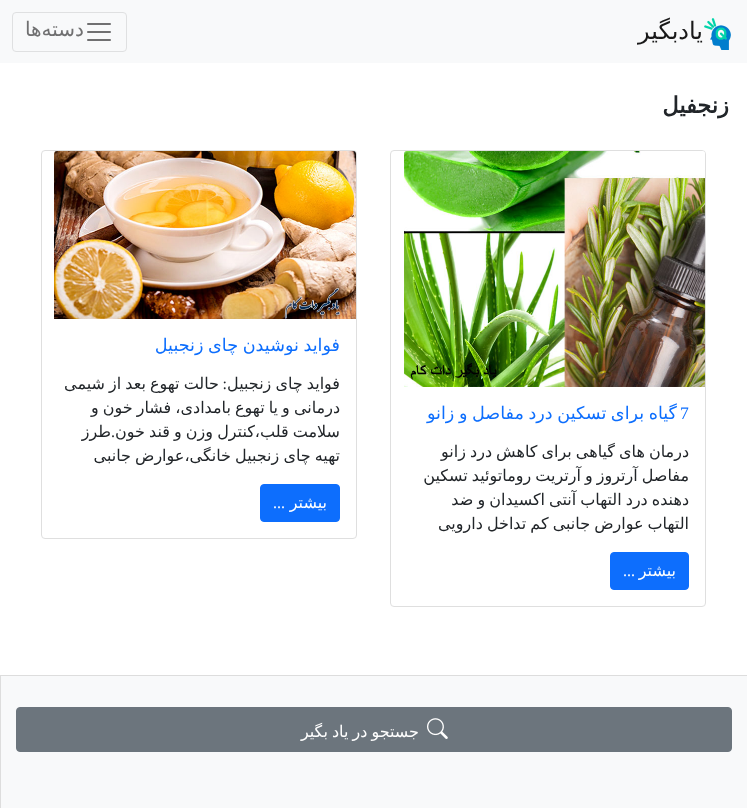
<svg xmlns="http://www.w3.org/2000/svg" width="747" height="808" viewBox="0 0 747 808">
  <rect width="100%" height="100%" fill="#fff"/>
  <path d="M0 0h747v63H0z" fill="#f8f9fa"/>
  <image x="704" y="18" width="27" height="32" href="img/1.png"/>
  <rect x="12.5" y="12.5" width="114" height="39" rx="3.5" fill="none" stroke="#dfe0e1"/>
  <image x="87" y="23" width="24" height="18" href="img/2.png"/>
  <rect x="390.5" y="150.5" width="315" height="456" rx="3.5" fill="none" stroke="#dfdfdf"/>
  <image x="404" y="151" width="301" height="236" href="img/3.png"/>
  <rect x="610.5" y="552.5" width="78" height="37" rx="3.5" fill="#0d6efd" stroke="#0d6efd"/>
  <rect x="41.5" y="150.5" width="315" height="388" rx="3.5" fill="none" stroke="#dfdfdf"/>
  <image x="54" y="151" width="302" height="168" href="img/4.png"/>
  <rect x="260.5" y="484.5" width="79" height="37" rx="3.5" fill="#0d6efd" stroke="#0d6efd"/>
  <path d="M1 676h746v132H1z" fill="#f8f9fa"/>
  <path d="M0 675h747v1H0z" fill="#ddd"/>
  <path d="M0 675h1v133H0z" fill="#ddd"/>
  <rect x="16.5" y="707.5" width="715" height="44" rx="3.5" fill="#6c757d" stroke="#6c757d"/>
  <image x="427" y="718" width="21" height="21" href="img/5.png"/>
  <text x="703" y="39" font-family="DejaVu Sans" font-size="24" direction="rtl" fill="#191919">یادبگیر</text>
  <text x="84" y="36" font-family="DejaVu Sans" font-size="20" direction="rtl" fill="#707071">دسته‌ها</text>
  <text x="729" y="113" font-family="DejaVu Sans" font-size="22.5" font-weight="bold" direction="rtl" fill="#212529">زنجفیل</text>
  <text x="677" y="419" word-spacing="-1" font-family="DejaVu Sans" font-size="17.6" direction="rtl" fill="#0d6efd">گیاه برای تسکین درد مفاصل و زانو</text>
  <text x="680" y="419" font-family="Liberation Serif" font-size="17.6" fill="#0d6efd">7</text>
  <g font-family="DejaVu Sans" font-size="16" direction="rtl" fill="#212529">
    <text x="689" y="457" word-spacing="-1">درمان های گیاهی برای کاهش درد زانو</text>
    <text x="689" y="481" word-spacing="-1">مفاصل آرتروز و آرتریت روماتوئید تسکین</text>
    <text x="689" y="505" word-spacing="-1">دهنده درد التهاب آنتی اکسیدان و ضد</text>
    <text x="689" y="529" word-spacing="-1">التهاب عوارض جانبی کم تداخل دارویی</text>
  </g>
  <text x="676" y="576" font-family="DejaVu Sans" font-size="16" direction="rtl" fill="#fff">بیشتر</text>
  <text x="635" y="576" font-family="Liberation Serif" font-size="16" direction="rtl" fill="#fff">...</text>
  <text x="340" y="351" word-spacing="-1" font-family="DejaVu Sans" font-size="17.6" direction="rtl" fill="#0d6efd">فواید نوشیدن چای زنجبیل</text>
  <text x="340" y="389" word-spacing="-1" font-family="DejaVu Sans" font-size="16" direction="rtl" fill="#212529">فواید چای زنجبیل</text>
  <text x="227" y="389" font-family="Liberation Serif" font-size="16" direction="rtl" fill="#212529">:</text>
  <g font-family="DejaVu Sans" font-size="16" direction="rtl" fill="#212529">
    <text x="219" y="389" word-spacing="-1">حالت تهوع بعد از شیمی</text>
    <text x="340" y="413" word-spacing="-1">درمانی و یا تهوع بامدادی، فشار خون و</text>
    <text x="340" y="437" word-spacing="-1">سلامت قلب،کنترل وزن و قند خون</text>
  </g>
  <text x="115" y="437" font-family="Liberation Serif" font-size="16" direction="rtl" fill="#212529">.</text>
  <g font-family="DejaVu Sans" font-size="16" direction="rtl" fill="#212529">
    <text x="111" y="437">طرز</text>
    <text x="340" y="461" word-spacing="-1">تهیه چای زنجبیل خانگی،عوارض جانبی</text>
  </g>
  <text x="327" y="508" font-family="DejaVu Sans" font-size="16" direction="rtl" fill="#fff">بیشتر</text>
  <text x="285" y="508" font-family="Liberation Serif" font-size="16" direction="rtl" fill="#fff">...</text>
  <text x="419" y="737" word-spacing="-1" font-family="DejaVu Sans" font-size="16" direction="rtl" fill="#fff">جستجو در یاد بگیر</text>
</svg>
